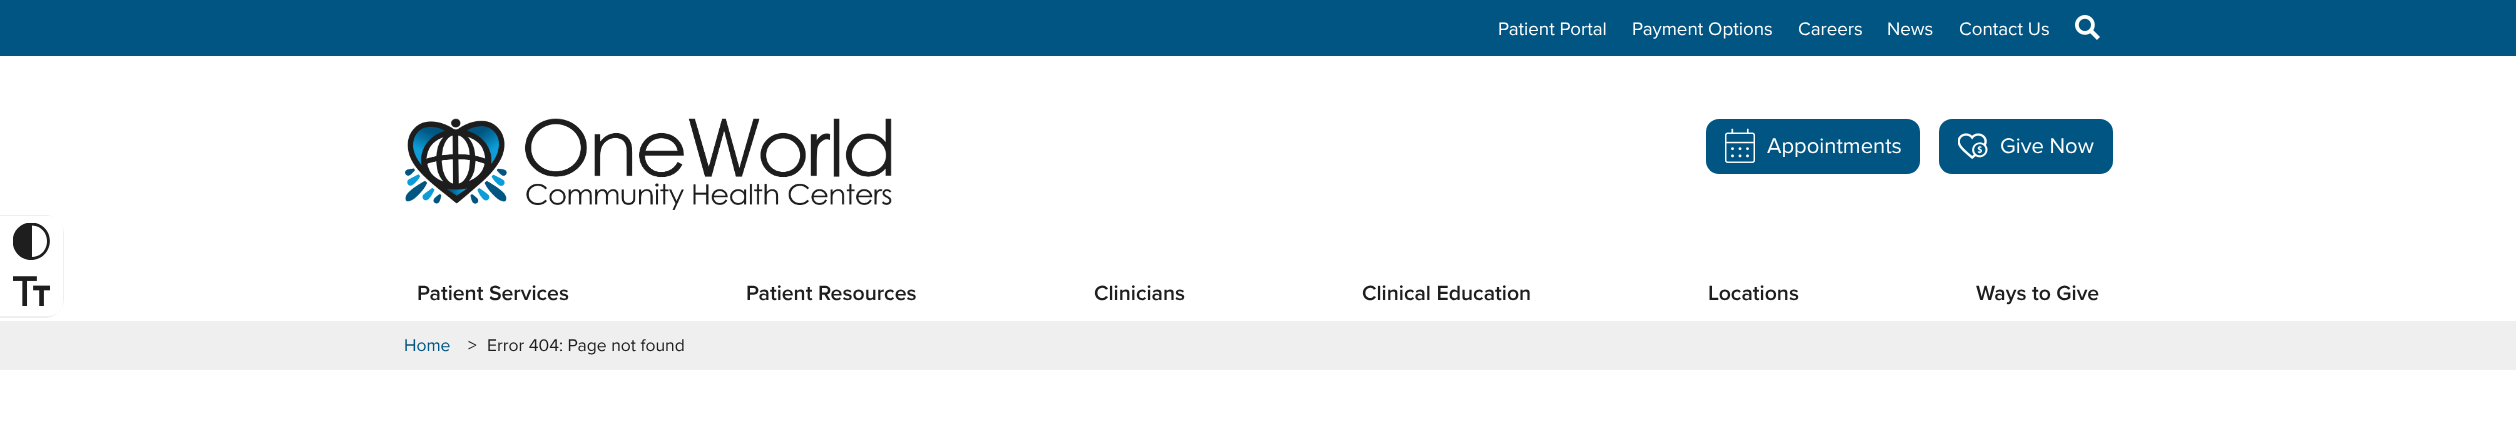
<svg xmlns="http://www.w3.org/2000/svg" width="2516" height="430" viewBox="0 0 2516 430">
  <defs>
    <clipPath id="clip1"><path d="M13 223h37v37H13z"/></clipPath>
  </defs>
  <rect width="100%" height="100%" fill="#fff"/>
  <path d="M0 0h2516v56H0z" fill="#005582"/>
  <image x="2075" y="15" width="25" height="25" href="img/1.png"/>
  <image x="405" y="118" width="487" height="92" href="img/2.png"/>
  <rect x="1706" y="119" width="214" height="55" rx="13" fill="#005582"/>
  <image x="1725" y="128" width="30" height="35" href="img/3.png"/>
  <rect x="1939" y="119" width="174" height="55" rx="13" fill="#005582"/>
  <image x="1958" y="133" width="30" height="26" href="img/4.png"/>
  <path d="M0 215H45C55 215 64 223 64 234V299C64 309 55 318 45 318H0ZM0 216H45C55 216 62 224 62 234V299C62 308 55 316 45 316H0Z" fill="#efefef" fill-rule="evenodd"/>
  <path d="M0 216H48C56.5 216 63 222.5 63 231V266H0Z" fill="#fff"/>
  <g clip-path="url(#clip1)">
    <path d="M31 260C13 260 5.5 236 21 225.5C24 223.5 27.5 222.5 31 222.5C35 222.5 38.5 223.5 41.5 225.5C57 236 49.5 260 31 260ZM32 257C52 256 52 226.5 32 225.5Z" fill="#1e1e1f"/>
  </g>
  <path d="M0 266H63V301C63 309.5 56.5 316 48 316H0Z" fill="#fff"/>
  <image x="13" y="276" width="37" height="30" href="img/5.png"/>
  <path d="M0 321h2516v49H0z" fill="#efefef"/>
  <g font-family="Proxima Nova" font-size="18.75" fill="#fff">
    <text x="1498" y="35">Patient Portal</text>
    <text x="1632" y="35">Payment Options</text>
    <text x="1798" y="35">Careers</text>
    <text x="1887" y="35">News</text>
    <text x="1959" y="35">Contact Us</text>
  </g>
  <g font-family="Proxima Nova" font-size="22" fill="#fff">
    <text x="1767" y="153">Appointments</text>
    <text x="2000" y="153">Give Now</text>
  </g>
  <g font-family="Proxima Nova" font-size="21.25" font-weight="600" fill="#1e1e1f">
    <text x="417" y="300">Patient Services</text>
    <text x="746" y="300">Patient Resources</text>
    <text x="1094" y="300">Clinicians</text>
    <text x="1362" y="300">Clinical Education</text>
    <text x="1708" y="300">Locations</text>
    <text x="1976" y="300">Ways to Give</text>
  </g>
  <text x="404" y="351" font-family="Proxima Nova" font-size="17.5" fill="#005582">Home</text>
  <g font-family="Proxima Nova" font-size="17.5" fill="#1e1e1f">
    <text x="468" y="351">&gt;</text>
    <text x="487" y="351">Error 404: Page not found</text>
  </g>
</svg>
